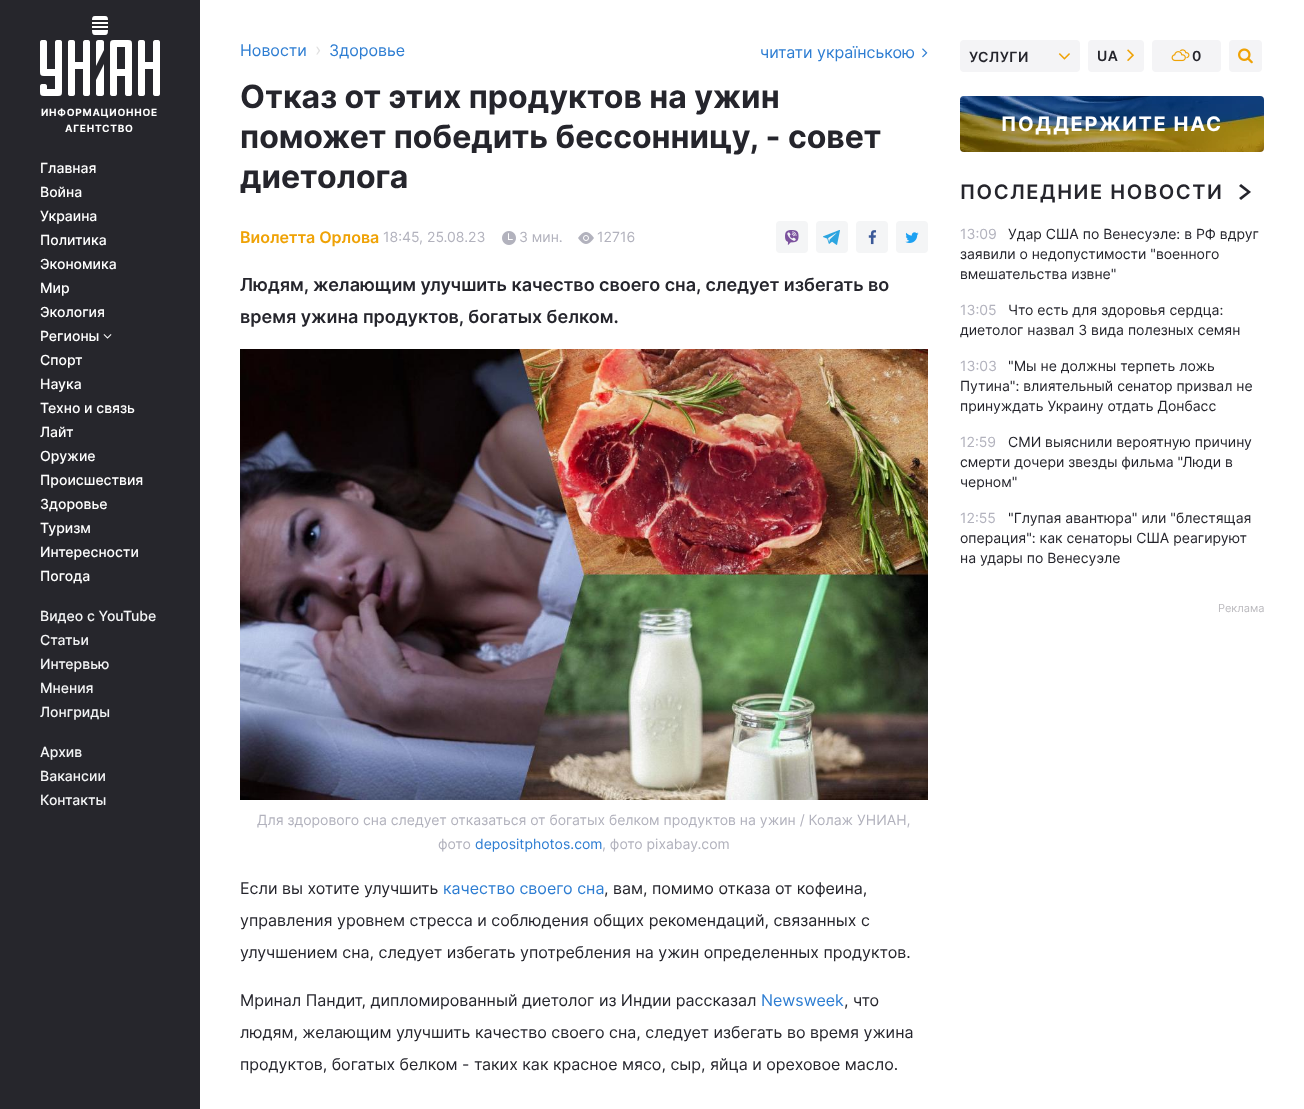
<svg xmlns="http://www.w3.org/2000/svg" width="1304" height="1109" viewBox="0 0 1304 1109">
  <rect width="100%" height="100%" fill="#fff"/>
  <path d="M0 0h200v1109H0z" fill="#26262c"/>
  <image x="40" y="16" width="120" height="80" href="img/1.png"/>
  <image x="103" y="334" width="9" height="5" href="img/2.png"/>
  <image x="922" y="48" width="6" height="10" href="img/3.png"/>
  <image x="502" y="231" width="14" height="14" href="img/4.png"/>
  <image x="578" y="232" width="16" height="12" href="img/5.png"/>
  <rect x="776" y="221" width="32" height="32" rx="4" fill="#f4f5f6"/>
  <image x="785" y="230" width="14" height="15" href="img/6.png"/>
  <rect x="816" y="221" width="32" height="32" rx="4" fill="#f4f5f6"/>
  <image x="823" y="230" width="17" height="15" href="img/7.png"/>
  <rect x="856" y="221" width="32" height="32" rx="4" fill="#f4f5f6"/>
  <image x="868" y="230" width="9" height="15" href="img/8.png"/>
  <rect x="896" y="221" width="32" height="32" rx="4" fill="#f4f5f6"/>
  <image x="905" y="232" width="14" height="11" href="img/9.png"/>
  <image x="240" y="349" width="688" height="451" href="img/10.png"/>
  <rect x="960" y="40" width="120" height="32" rx="4" fill="#f4f4f6"/>
  <image x="1058" y="53" width="12" height="7" href="img/11.png"/>
  <rect x="1088" y="40" width="56" height="32" rx="4" fill="#f4f4f6"/>
  <image x="1127" y="49" width="7" height="12" href="img/12.png"/>
  <rect x="1152" y="40" width="69" height="32" rx="4" fill="#f4f4f6"/>
  <image x="1171" y="49" width="19" height="13" href="img/13.png"/>
  <rect x="1229" y="40" width="33" height="32" rx="4" fill="#f4f4f6"/>
  <image x="1238" y="48" width="15" height="16" href="img/14.png"/>
  <image x="960" y="96" width="304" height="56" href="img/15.png"/>
  <image x="1239" y="184" width="12" height="16" href="img/16.png"/>
  <g font-family="Inter" font-size="10" font-weight="bold" letter-spacing="0.75" fill="#fff">
    <text x="41" y="116">ИНФОРМАЦИОННОЕ</text>
    <text x="65" y="132">АГЕНТСТВО</text>
  </g>
  <g font-family="Inter" font-size="14" font-weight="500" fill="#fff">
    <text x="40" y="173">Главная</text>
    <text x="40" y="197">Война</text>
    <text x="40" y="221">Украина</text>
    <text x="40" y="245">Политика</text>
    <text x="40" y="269">Экономика</text>
    <text x="40" y="293">Мир</text>
    <text x="40" y="317">Экология</text>
    <text x="40" y="341">Регионы</text>
    <text x="40" y="365">Спорт</text>
    <text x="40" y="389">Наука</text>
    <text x="40" y="413">Техно и связь</text>
    <text x="40" y="437">Лайт</text>
    <text x="40" y="461">Оружие</text>
    <text x="40" y="485">Происшествия</text>
    <text x="40" y="509">Здоровье</text>
    <text x="40" y="533">Туризм</text>
    <text x="40" y="557">Интересности</text>
    <text x="40" y="581">Погода</text>
  </g>
  <g font-family="Inter" font-size="14" font-weight="500" fill="#f4f5f6">
    <text x="40" y="621">Видео с YouTube</text>
    <text x="40" y="645">Статьи</text>
    <text x="40" y="669">Интервью</text>
    <text x="40" y="693">Мнения</text>
    <text x="40" y="717">Лонгриды</text>
    <text x="40" y="757">Архив</text>
    <text x="40" y="781">Вакансии</text>
    <text x="40" y="805">Контакты</text>
  </g>
  <text x="240" y="56" font-family="Inter" font-size="16" fill="#2d7dd2">Новости</text>
  <text x="315" y="56" font-family="Inter" font-size="18" fill="#e1e1e1">›</text>
  <g font-family="Inter" font-size="16" fill="#2d7dd2">
    <text x="329" y="56">Здоровье</text>
    <text x="760" y="58">читати українською</text>
  </g>
  <g font-family="Inter" font-size="32" font-weight="bold" fill="#25252c">
    <text x="240" y="108">Отказ от этих продуктов на ужин</text>
    <text x="240" y="148">поможет победить бессонницу, - совет</text>
    <text x="240" y="188">диетолога</text>
  </g>
  <text x="240" y="243" font-family="Inter" font-size="16" font-weight="600" fill="#efa205">Виолетта Орлова</text>
  <g font-family="Inter" font-size="14" fill="#b2b2bd">
    <text x="383" y="242">18:45, 25.08.23</text>
    <text x="519" y="242">3 мин.</text>
    <text x="597" y="242">12716</text>
  </g>
  <g font-family="Inter" font-size="18" font-weight="600" fill="#25252c">
    <text x="240" y="291">Людям, желающим улучшить качество своего сна, следует избегать во</text>
    <text x="240" y="323">время ужина продуктов, богатых белком.</text>
  </g>
  <g font-family="Inter" font-size="14" fill="#b2b2bd">
    <text x="257" y="825">Для здорового сна следует отказаться от богатых белком продуктов на ужин / Колаж УНИАН,</text>
    <text x="438" y="849">фото</text>
  </g>
  <text x="475" y="849" font-family="Inter" font-size="14" fill="#2d7dd2">depositphotos.com</text>
  <text x="602" y="849" font-family="Inter" font-size="14" fill="#b2b2bd">, фото pixabay.com</text>
  <text x="240" y="894" font-family="Inter" font-size="16" fill="#25252c">Если вы хотите улучшить</text>
  <text x="443" y="894" font-family="Inter" font-size="16" fill="#2d7dd2">качество своего сна</text>
  <g font-family="Inter" font-size="16" fill="#25252c">
    <text x="604" y="894">, вам, помимо отказа от кофеина,</text>
    <text x="240" y="926">управления уровнем стресса и соблюдения общих рекомендаций, связанных с</text>
    <text x="240" y="958">улучшением сна, следует избегать употребления на ужин определенных продуктов.</text>
    <text x="240" y="1006">Мринал Пандит, дипломированный диетолог из Индии рассказал</text>
  </g>
  <text x="761" y="1006" font-family="Inter" font-size="16" fill="#2d7dd2">Newsweek</text>
  <g font-family="Inter" font-size="16" fill="#25252c">
    <text x="844" y="1006">, что</text>
    <text x="240" y="1038">людям, желающим улучшить качество своего сна, следует избегать во время ужина</text>
    <text x="240" y="1070">продуктов, богатых белком - таких как красное мясо, сыр, яйца и ореховое масло.</text>
  </g>
  <g font-family="Inter" font-size="14" font-weight="600" letter-spacing="0.5" fill="#25252c">
    <text x="969" y="62">УСЛУГИ</text>
    <text x="1097" y="61">UA</text>
    <text x="1192" y="61">0</text>
  </g>
  <text x="1001" y="131" font-family="Inter" font-size="20" font-weight="bold" letter-spacing="1.6" fill="#fff">ПОДДЕРЖИТЕ НАС</text>
  <text x="960" y="199" font-family="Inter" font-size="20" font-weight="600" letter-spacing="1.6" fill="#25252c">ПОСЛЕДНИЕ НОВОСТИ</text>
  <text x="960" y="239" font-family="Inter" font-size="14" fill="#b2b2bd">13:09</text>
  <g font-family="Inter" font-size="14" fill="#25252c">
    <text x="1008" y="239">Удар США по Венесуэле: в РФ вдруг</text>
    <text x="960" y="259">заявили о недопустимости "военного</text>
    <text x="960" y="279">вмешательства извне"</text>
  </g>
  <text x="960" y="315" font-family="Inter" font-size="14" fill="#b2b2bd">13:05</text>
  <g font-family="Inter" font-size="14" fill="#25252c">
    <text x="1008" y="315">Что есть для здоровья сердца:</text>
    <text x="960" y="335">диетолог назвал 3 вида полезных семян</text>
  </g>
  <text x="960" y="371" font-family="Inter" font-size="14" fill="#b2b2bd">13:03</text>
  <g font-family="Inter" font-size="14" fill="#25252c">
    <text x="1008" y="371">"Мы не должны терпеть ложь</text>
    <text x="960" y="391">Путина": влиятельный сенатор призвал не</text>
    <text x="960" y="411">принуждать Украину отдать Донбасс</text>
  </g>
  <text x="960" y="447" font-family="Inter" font-size="14" fill="#b2b2bd">12:59</text>
  <g font-family="Inter" font-size="14" fill="#25252c">
    <text x="1008" y="447">СМИ выяснили вероятную причину</text>
    <text x="960" y="467">смерти дочери звезды фильма "Люди в</text>
    <text x="960" y="487">черном"</text>
  </g>
  <text x="960" y="523" font-family="Inter" font-size="14" fill="#b2b2bd">12:55</text>
  <g font-family="Inter" font-size="14" fill="#25252c">
    <text x="1008" y="523">"Глупая авантюра" или "блестящая</text>
    <text x="960" y="543">операция": как сенаторы США реагируют</text>
    <text x="960" y="563">на удары по Венесуэле</text>
  </g>
  <text x="1218" y="612" font-family="Inter" font-size="11" fill="#bcbbbf">Реклама</text>
</svg>
